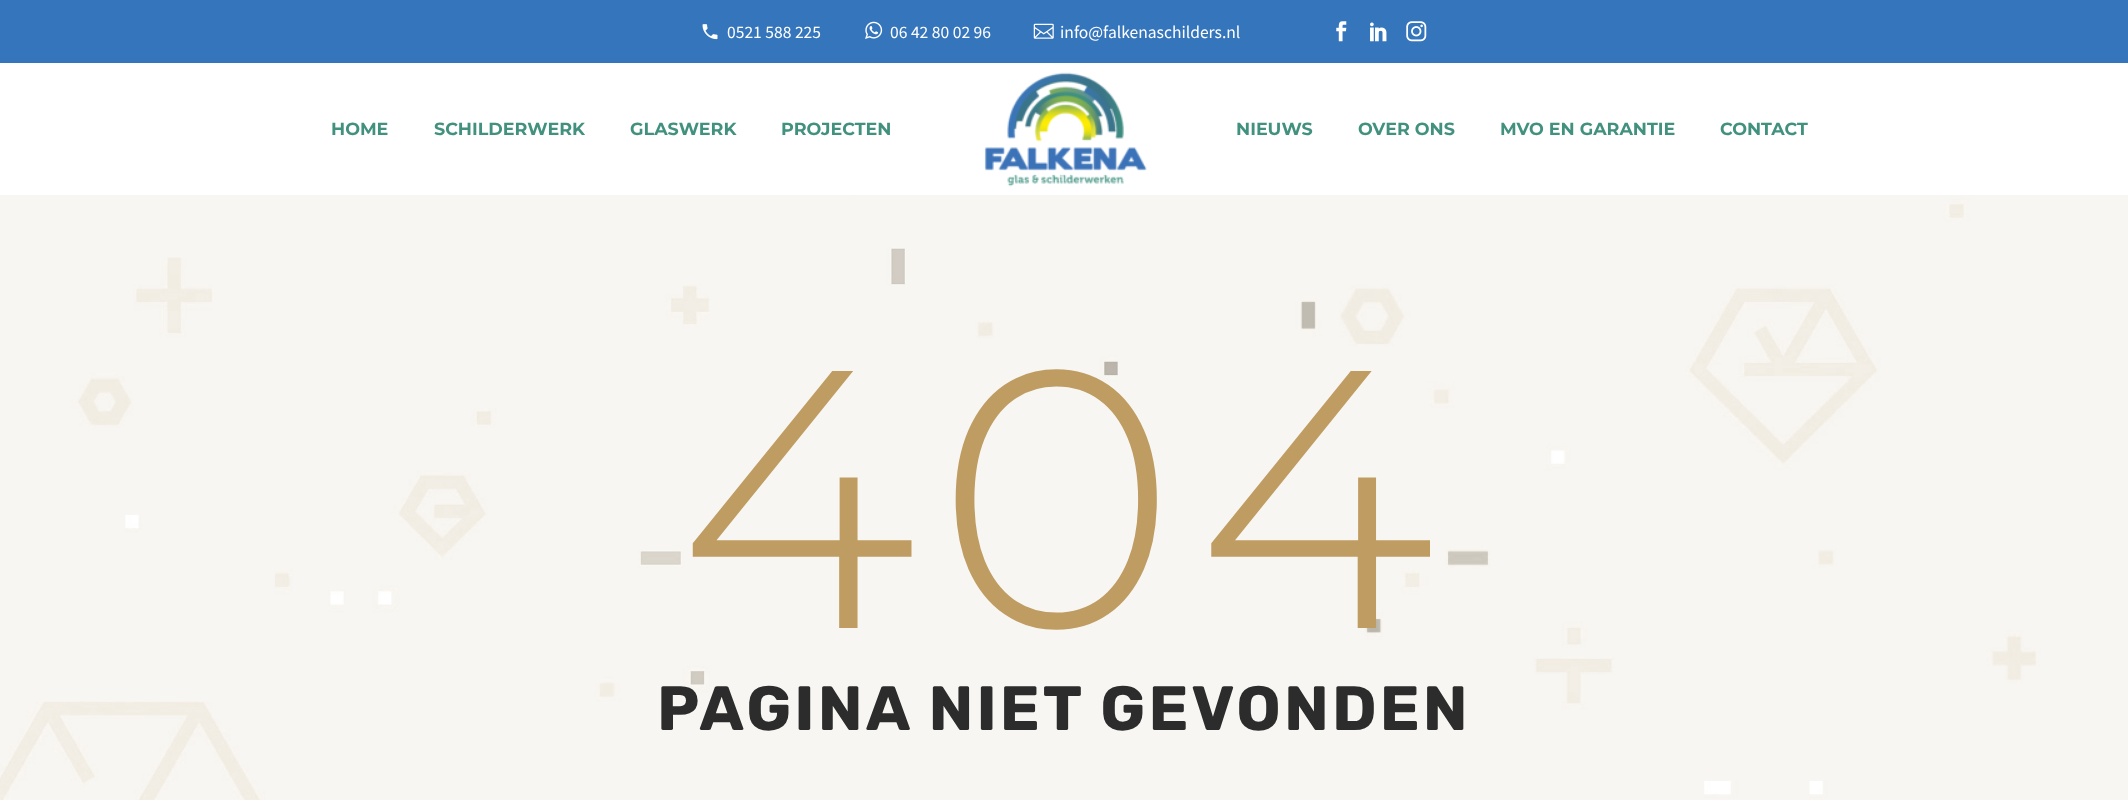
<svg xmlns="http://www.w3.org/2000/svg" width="2128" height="800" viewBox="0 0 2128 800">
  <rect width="100%" height="100%" fill="#fff"/>
  <path d="M0 0h2128v63H0z" fill="#3475bb"/>
  <image x="702" y="24" width="16" height="16" href="img/1.png"/>
  <image x="865" y="21" width="18" height="18" href="img/2.png"/>
  <image x="1033" y="23" width="21" height="16" href="img/3.png"/>
  <image x="1336" y="21" width="11" height="21" href="img/4.png"/>
  <image x="1370" y="22" width="17" height="20" href="img/5.png"/>
  <image x="1406" y="21" width="21" height="21" href="img/6.png"/>
  <image x="984" y="72" width="163" height="115" href="img/7.png"/>
  <image x="0" y="195" width="2128" height="605" href="img/8.png"/>
  <g font-family="Source Sans Pro" font-size="17.5" fill="#fff">
    <text x="727" y="38">0521 588 225</text>
    <text x="890" y="38">06 42 80 02 96</text>
    <text x="1060" y="38">info@falkenaschilders.nl</text>
  </g>
  <g font-family="Montserrat" font-size="17.5" font-weight="bold" fill="#42917f">
    <text x="331" y="135">HOME</text>
    <text x="434" y="135">SCHILDERWERK</text>
    <text x="630" y="135">GLASWERK</text>
    <text x="781" y="135">PROJECTEN</text>
    <text x="1236" y="135">NIEUWS</text>
    <text x="1358" y="135">OVER ONS</text>
    <text x="1500" y="135">MVO EN GARANTIE</text>
    <text x="1720" y="135">CONTACT</text>
  </g>
  <text x="677" y="628" font-family="Montserrat" font-size="367" font-weight="300" letter-spacing="18.5" fill="#bf9c61">404</text>
  <text x="657" y="730" font-family="Rubik" font-size="62.5" font-weight="bold" letter-spacing="3.1" fill="#2c2c2c">PAGINA NIET GEVONDEN</text>
</svg>
